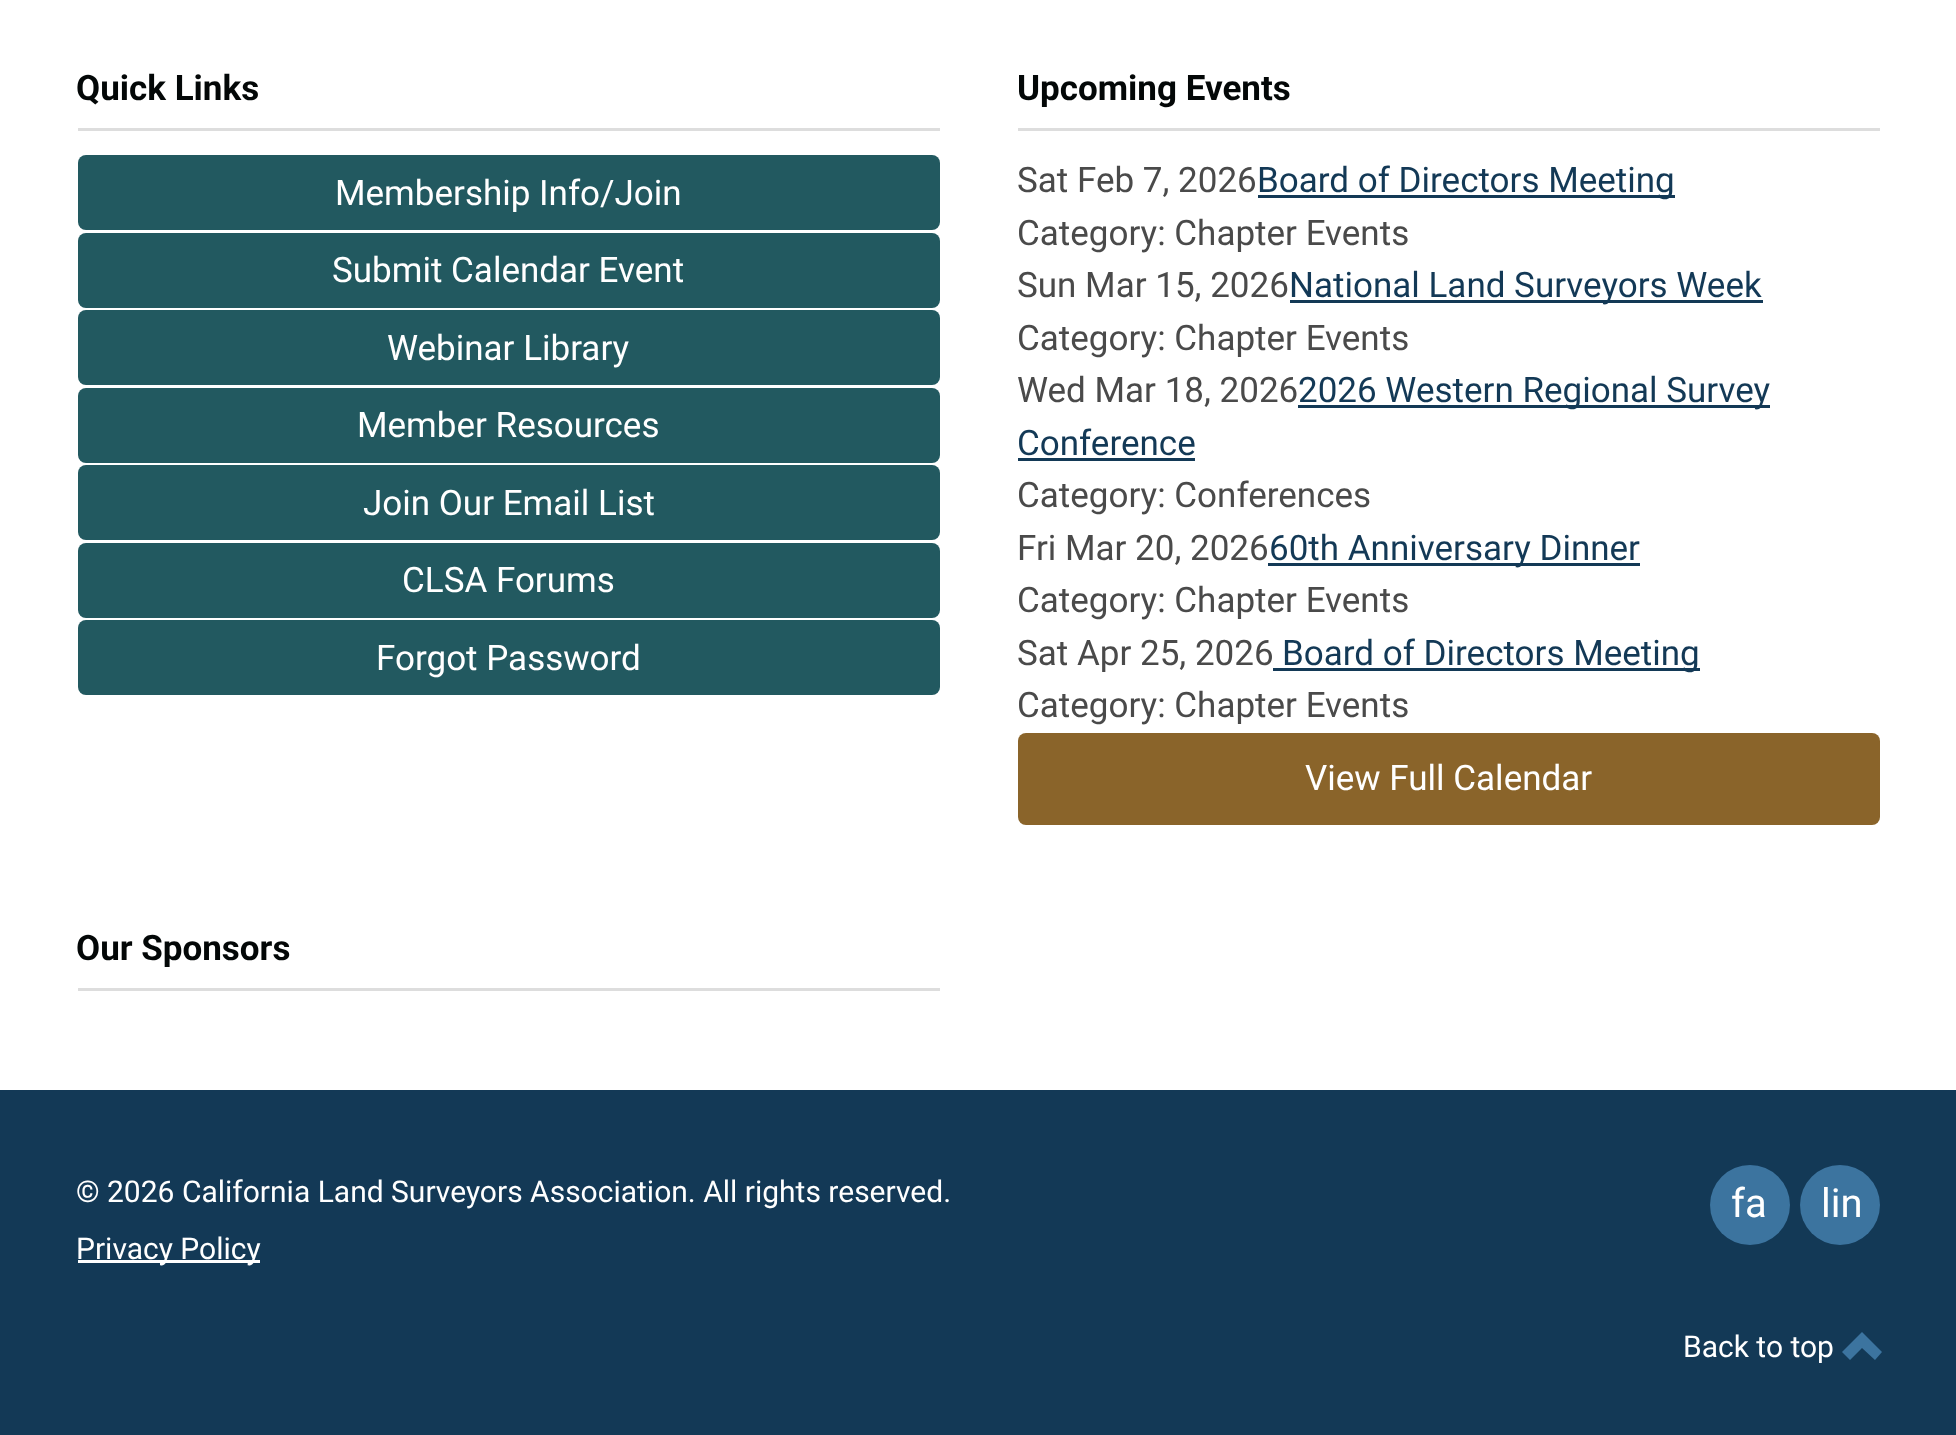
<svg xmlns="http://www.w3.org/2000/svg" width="1956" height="1435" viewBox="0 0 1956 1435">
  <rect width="100%" height="100%" fill="#fff"/>
  <path d="M78 128h862v3H78z" fill="#ddd"/>
  <rect x="78" y="155" width="862" height="75" rx="8" fill="#225960"/>
  <rect x="78" y="233" width="862" height="75" rx="8" fill="#225960"/>
  <rect x="78" y="310" width="862" height="75" rx="8" fill="#225960"/>
  <rect x="78" y="388" width="862" height="75" rx="8" fill="#225960"/>
  <rect x="78" y="465" width="862" height="75" rx="8" fill="#225960"/>
  <rect x="78" y="543" width="862" height="75" rx="8" fill="#225960"/>
  <rect x="78" y="620" width="862" height="75" rx="8" fill="#225960"/>
  <path d="M1018 128h862v3H1018z" fill="#ddd"/>
  <path d="M1258 195h417v3H1258z" fill="#133956"/>
  <path d="M1290 300h473v3H1290z" fill="#133956"/>
  <path d="M1298 405h472v3H1298z" fill="#133956"/>
  <path d="M1018 458h177v3H1018z" fill="#133956"/>
  <path d="M1268 563h372v3H1268z" fill="#133956"/>
  <path d="M1273 668h427v3H1273z" fill="#133956"/>
  <rect x="1018" y="733" width="862" height="92" rx="8" fill="#8a642a"/>
  <path d="M78 988h862v3H78z" fill="#ddd"/>
  <path d="M0 1090h1956v345H0z" fill="#133956"/>
  <path d="M78 1260h182v3H78z" fill="#fff"/>
  <circle cx="1750" cy="1205" r="40" fill="#3c749f"/>
  <circle cx="1840" cy="1205" r="40" fill="#3c749f"/>
  <path d="M1842 1352L1850 1360L1862 1348L1875 1360L1882 1352L1862 1332Z" fill="#3c749f"/>
  <text x="76" y="100" font-family="Roboto" font-size="35" font-weight="bold" fill="#030707">Quick Links</text>
  <g font-family="Roboto" font-size="35" fill="#fff">
    <text x="335" y="205">Membership Info/Join</text>
    <text x="332" y="282">Submit Calendar Event</text>
    <text x="387" y="360">Webinar Library</text>
    <text x="357" y="437">Member Resources</text>
    <text x="363" y="515">Join Our Email List</text>
    <text x="402" y="592">CLSA Forums</text>
    <text x="376" y="670">Forgot Password</text>
  </g>
  <text x="1017" y="100" font-family="Roboto" font-size="35" font-weight="bold" fill="#030707">Upcoming Events</text>
  <text x="1017" y="192" font-family="Roboto" font-size="35" fill="#4a4a4a">Sat Feb 7, 2026</text>
  <text x="1257" y="192" font-family="Roboto" font-size="35" fill="#133956">Board of Directors Meeting</text>
  <g font-family="Roboto" font-size="35" fill="#4a4a4a">
    <text x="1017" y="245">Category: Chapter Events</text>
    <text x="1017" y="297">Sun Mar 15, 2026</text>
  </g>
  <text x="1289" y="297" font-family="Roboto" font-size="35" fill="#133956">National Land Surveyors Week</text>
  <g font-family="Roboto" font-size="35" fill="#4a4a4a">
    <text x="1017" y="350">Category: Chapter Events</text>
    <text x="1017" y="402">Wed Mar 18, 2026</text>
  </g>
  <g font-family="Roboto" font-size="35" fill="#133956">
    <text x="1298" y="402">2026 Western Regional Survey</text>
    <text x="1017" y="455">Conference</text>
  </g>
  <g font-family="Roboto" font-size="35" fill="#4a4a4a">
    <text x="1017" y="507">Category: Conferences</text>
    <text x="1017" y="560">Fri Mar 20, 2026</text>
  </g>
  <text x="1269" y="560" font-family="Roboto" font-size="35" fill="#133956">60th Anniversary Dinner</text>
  <g font-family="Roboto" font-size="35" fill="#4a4a4a">
    <text x="1017" y="612">Category: Chapter Events</text>
    <text x="1017" y="665">Sat Apr 25, 2026</text>
  </g>
  <text x="1282" y="665" font-family="Roboto" font-size="35" fill="#133956">Board of Directors Meeting</text>
  <text x="1017" y="717" font-family="Roboto" font-size="35" fill="#4a4a4a">Category: Chapter Events</text>
  <text x="1305" y="790" font-family="Roboto" font-size="35" fill="#fff">View Full Calendar</text>
  <text x="76" y="960" font-family="Roboto" font-size="35" font-weight="bold" fill="#030707">Our Sponsors</text>
  <g font-family="Roboto" font-size="30" fill="#fff">
    <text x="76" y="1202">© 2026 California Land Surveyors Association. All rights reserved.</text>
    <text x="76" y="1259">Privacy Policy</text>
  </g>
  <g font-family="Roboto" font-size="40" fill="#fff">
    <text x="1731" y="1217">fa</text>
    <text x="1821" y="1217">lin</text>
  </g>
  <text x="1683" y="1357" font-family="Roboto" font-size="30" fill="#fff">Back to top</text>
</svg>
